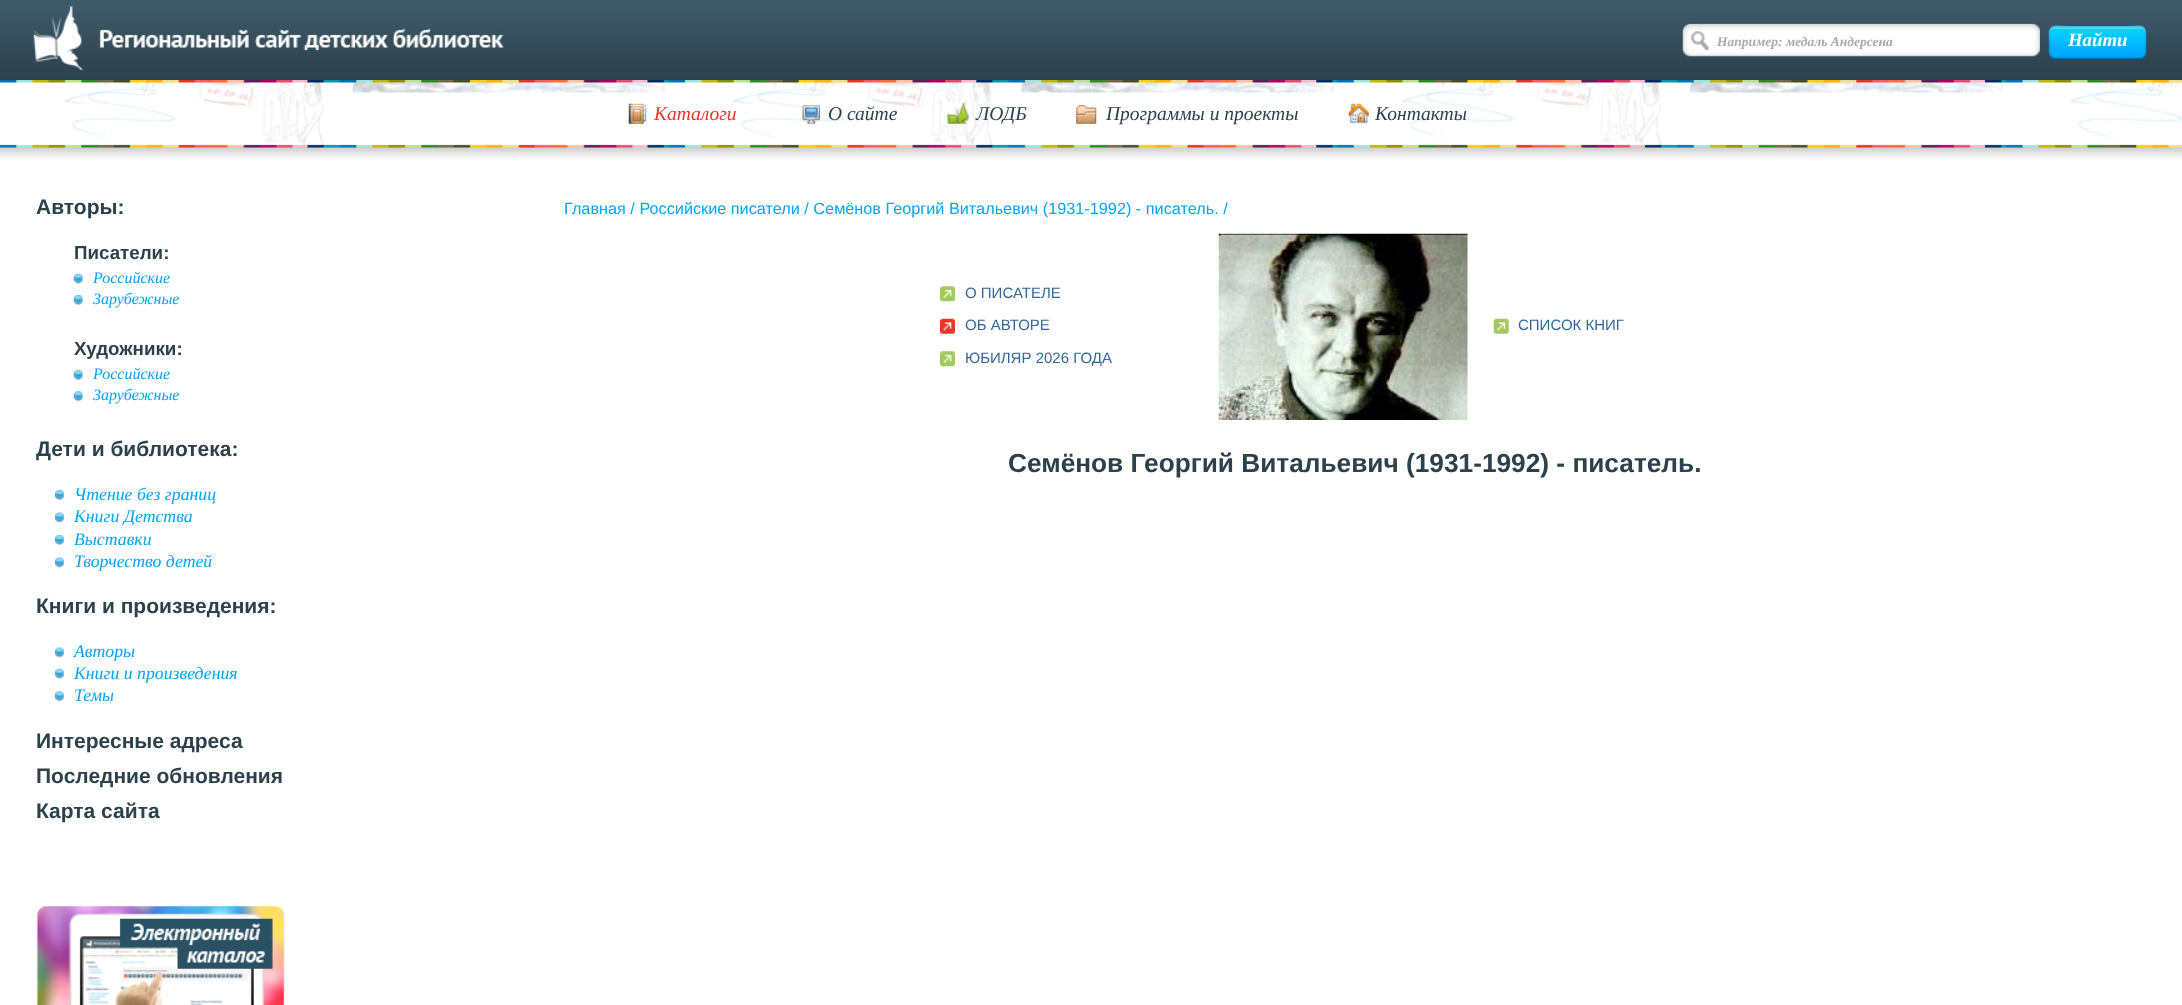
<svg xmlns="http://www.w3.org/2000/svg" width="2182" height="1005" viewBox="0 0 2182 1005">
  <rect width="100%" height="100%" fill="#fff"/>
  <image x="0" y="0" width="2182" height="80" href="img/1.png"/>
  <image x="33" y="6" width="471" height="64" href="img/2.png"/>
  <image x="1682" y="23" width="358" height="34" href="img/3.png"/>
  <rect x="2049" y="28" width="97" height="32" rx="5" fill="#004b85bf" filter="blur(0.5px)"/>
  <image x="2048" y="26" width="99" height="33" href="img/4.png"/>
  <path d="M2054 29H2141C2144 29 2146 31 2146 34C2146 22 2138 26 2126 26H2068C2057 26 2049 22 2049 34C2049 31 2051 29 2054 29Z" fill="#ffffff38"/>
  <image x="0" y="80" width="2182" height="79" href="img/5.png"/>
  <image x="628" y="103" width="19" height="21" href="img/6.png"/>
  <image x="802" y="105" width="18" height="19" href="img/7.png"/>
  <image x="947" y="102" width="23" height="22" href="img/8.png"/>
  <image x="1076" y="105" width="21" height="19" href="img/9.png"/>
  <image x="1348" y="103" width="21" height="21" href="img/10.png"/>
  <image x="73" y="273" width="10" height="11" href="img/11.png"/>
  <image x="73" y="295" width="10" height="10" href="img/12.png"/>
  <image x="73" y="370" width="10" height="10" href="img/12.png"/>
  <image x="73" y="391" width="10" height="11" href="img/13.png"/>
  <image x="55" y="490" width="9" height="10" href="img/14.png"/>
  <image x="55" y="512" width="9" height="11" href="img/15.png"/>
  <image x="55" y="535" width="9" height="10" href="img/14.png"/>
  <image x="55" y="557" width="9" height="11" href="img/16.png"/>
  <image x="55" y="647" width="9" height="11" href="img/16.png"/>
  <image x="55" y="668" width="9" height="11" href="img/17.png"/>
  <image x="55" y="691" width="9" height="11" href="img/18.png"/>
  <image x="36" y="906" width="249" height="99" href="img/19.png"/>
  <image x="940" y="286" width="15" height="16" href="img/20.png"/>
  <image x="940" y="318" width="15" height="16" href="img/21.png"/>
  <image x="940" y="351" width="15" height="16" href="img/22.png"/>
  <image x="1218" y="233" width="250" height="187" href="img/23.png"/>
  <image x="1493" y="318" width="16" height="16" href="img/24.png"/>
  <text x="1717" y="46" font-family="Liberation Serif" font-size="13.5" font-weight="bold" font-style="italic" fill="#ada9a9">Например: медаль Андерсена</text>
  <text x="2068" y="46" font-family="Liberation Serif" font-size="18.75" font-weight="bold" font-style="italic" fill="#fff">Найти</text>
  <text x="654" y="120" font-family="Liberation Serif" font-size="19.5" font-style="italic" fill="#e33729">Каталоги</text>
  <g font-family="Liberation Serif" font-size="19.5" font-style="italic" fill="#2d414c">
    <text x="828" y="120">О сайте</text>
    <text x="976" y="120">ЛОДБ</text>
    <text x="1106" y="120">Программы и проекты</text>
    <text x="1375" y="120">Контакты</text>
  </g>
  <text x="36" y="214" font-family="Liberation Sans" font-size="21" font-weight="bold" fill="#2d414c">Авторы:</text>
  <text x="74" y="259" font-family="Liberation Sans" font-size="18.75" font-weight="bold" fill="#2d414c">Писатели:</text>
  <g font-family="Liberation Serif" font-size="16" font-style="italic" fill="#00a5ff">
    <text x="93" y="283">Российские</text>
    <text x="93" y="304">Зарубежные</text>
  </g>
  <text x="74" y="355" font-family="Liberation Sans" font-size="18.75" font-weight="bold" fill="#2d414c">Художники:</text>
  <g font-family="Liberation Serif" font-size="16" font-style="italic" fill="#00a5ff">
    <text x="93" y="379">Российские</text>
    <text x="93" y="400">Зарубежные</text>
  </g>
  <text x="36" y="456" font-family="Liberation Sans" font-size="21" font-weight="bold" fill="#2d414c">Дети и библиотека:</text>
  <g font-family="Liberation Serif" font-size="17.75" font-style="italic" fill="#00a5ff">
    <text x="74" y="500">Чтение без границ</text>
    <text x="74" y="522">Книги Детства</text>
    <text x="74" y="545">Выставки</text>
    <text x="74" y="567">Творчество детей</text>
  </g>
  <text x="36" y="613" font-family="Liberation Sans" font-size="21" font-weight="bold" fill="#2d414c">Книги и произведения:</text>
  <g font-family="Liberation Serif" font-size="17.75" font-style="italic" fill="#00a5ff">
    <text x="74" y="657">Авторы</text>
    <text x="74" y="679">Книги и произведения</text>
    <text x="74" y="701">Темы</text>
  </g>
  <g font-family="Liberation Sans" font-size="21" font-weight="bold" fill="#2d414c">
    <text x="36" y="748">Интересные адреса</text>
    <text x="36" y="783">Последние обновления</text>
    <text x="36" y="818">Карта сайта</text>
  </g>
  <text x="564" y="214" font-family="Liberation Sans" font-size="16.25" fill="#00a5ff">Главная / Российские писатели / Семёнов Георгий Витальевич (1931-1992) - писатель. /</text>
  <g font-family="Liberation Sans" font-size="15" fill="#369">
    <text x="965" y="298">О ПИСАТЕЛЕ</text>
    <text x="965" y="330">ОБ АВТОРЕ</text>
    <text x="965" y="363">ЮБИЛЯР 2026 ГОДА</text>
    <text x="1518" y="330">СПИСОК КНИГ</text>
  </g>
  <text x="1008" y="472" font-family="Liberation Sans" font-size="26.25" font-weight="bold" fill="#2d414c">Семёнов Георгий Витальевич (1931-1992) - писатель.</text>
</svg>
